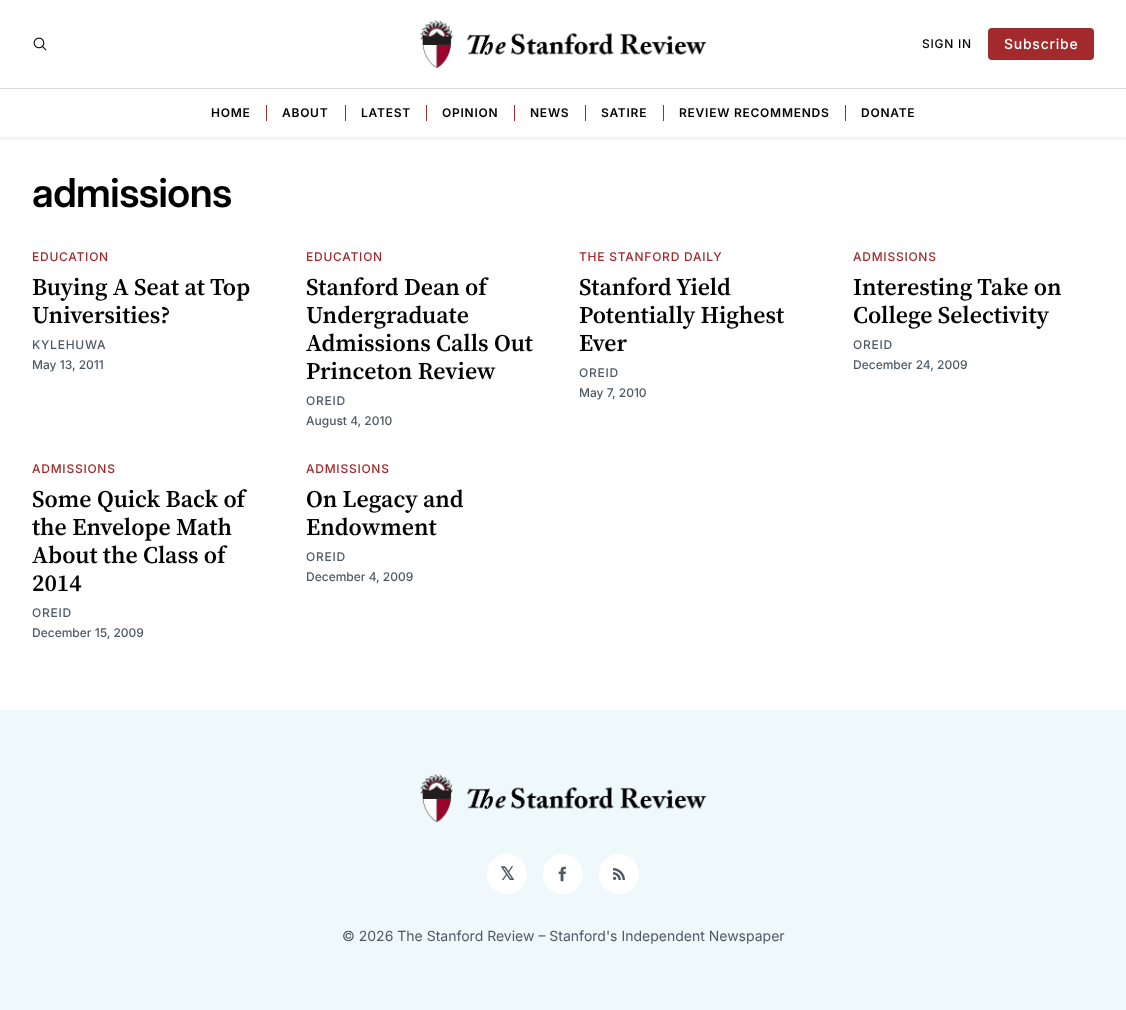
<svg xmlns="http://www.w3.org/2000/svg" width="1126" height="1010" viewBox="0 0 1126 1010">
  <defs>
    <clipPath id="clip1"><path d="M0 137h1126v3H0z"/></clipPath>
  </defs>
  <rect width="100%" height="100%" fill="#fff"/>
  <g clip-path="url(#clip1)">
    <path d="M-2 -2h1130v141H-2z" fill="#00000014" filter="blur(2px)"/>
  </g>
  <path d="M0 88h1126v1H0z" fill="#d9d9d9"/>
  <image x="33" y="37" width="14" height="14" href="img/1.png"/>
  <image x="420" y="20" width="286" height="48" href="img/2.png"/>
  <rect x="988" y="28" width="106" height="32" rx="4" fill="#a22a2c"/>
  <path d="M266 105h1v16H266z" fill="#a22a2c"/>
  <path d="M345 105h1v16H345z" fill="#a22a2c"/>
  <path d="M426 105h1v16H426z" fill="#a22a2c"/>
  <path d="M514 105h1v16H514z" fill="#a22a2c"/>
  <path d="M585 105h1v16H585z" fill="#a22a2c"/>
  <path d="M663 105h1v16H663z" fill="#a22a2c"/>
  <path d="M845 105h1v16H845z" fill="#a22a2c"/>
  <path d="M0 710h1126v300H0z" fill="#eff8fa"/>
  <image x="420" y="774" width="286" height="48" href="img/3.png"/>
  <circle cx="507" cy="874" r="20" fill="#fff"/>
  <circle cx="563" cy="874" r="20" fill="#fff"/>
  <image x="558" y="866" width="8" height="16" href="img/4.png"/>
  <circle cx="619" cy="874" r="20" fill="#fff"/>
  <image x="613" y="868" width="12" height="12" href="img/5.png"/>
  <text x="922" y="48" font-family="Inter" font-size="12" font-weight="500" letter-spacing="0.75" fill="#000">SIGN IN</text>
  <text x="1004" y="49" font-family="Inter" font-size="14" font-weight="500" letter-spacing="0.75" fill="#fff">Subscribe</text>
  <g font-family="'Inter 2'" font-size="12" font-weight="600" letter-spacing="0.75" fill="#000">
    <text x="211" y="117">HOME</text>
    <text x="282" y="117">ABOUT</text>
    <text x="361" y="117">LATEST</text>
    <text x="442" y="117">OPINION</text>
    <text x="530" y="117">NEWS</text>
    <text x="601" y="117">SATIRE</text>
    <text x="679" y="117">REVIEW RECOMMENDS</text>
    <text x="861" y="117">DONATE</text>
  </g>
  <text x="32" y="207" font-family="Inter" font-size="40" font-weight="600" letter-spacing="-0.5" fill="#000">admissions</text>
  <text x="32" y="261" font-family="Inter" font-size="12" font-weight="500" letter-spacing="0.75" fill="#a22a2c">EDUCATION</text>
  <g font-family="'Source Serif 4'" font-size="24" font-weight="600" fill="#000">
    <text x="32" y="295">Buying A Seat at Top</text>
    <text x="32" y="323">Universities?</text>
  </g>
  <text x="32" y="349" font-family="Inter" font-size="12" font-weight="500" letter-spacing="0.75" fill="#4e5965">KYLEHUWA</text>
  <text x="32" y="369" font-family="Inter" font-size="12" font-weight="500" fill="#4e5965">May 13, 2011</text>
  <text x="306" y="261" font-family="Inter" font-size="12" font-weight="500" letter-spacing="0.75" fill="#a22a2c">EDUCATION</text>
  <g font-family="'Source Serif 4'" font-size="24" font-weight="600" fill="#000">
    <text x="306" y="295">Stanford Dean of</text>
    <text x="306" y="323">Undergraduate</text>
    <text x="306" y="351">Admissions Calls Out</text>
    <text x="306" y="379">Princeton Review</text>
  </g>
  <text x="306" y="405" font-family="Inter" font-size="12" font-weight="500" letter-spacing="0.75" fill="#4e5965">OREID</text>
  <text x="306" y="425" font-family="Inter" font-size="12" font-weight="500" fill="#4e5965">August 4, 2010</text>
  <text x="579" y="261" font-family="Inter" font-size="12" font-weight="500" letter-spacing="0.75" fill="#a22a2c">THE STANFORD DAILY</text>
  <g font-family="'Source Serif 4'" font-size="24" font-weight="600" fill="#000">
    <text x="579" y="295">Stanford Yield</text>
    <text x="579" y="323">Potentially Highest</text>
    <text x="579" y="351">Ever</text>
  </g>
  <text x="579" y="377" font-family="Inter" font-size="12" font-weight="500" letter-spacing="0.75" fill="#4e5965">OREID</text>
  <text x="579" y="397" font-family="Inter" font-size="12" font-weight="500" fill="#4e5965">May 7, 2010</text>
  <text x="853" y="261" font-family="Inter" font-size="12" font-weight="500" letter-spacing="0.75" fill="#a22a2c">ADMISSIONS</text>
  <g font-family="'Source Serif 4'" font-size="24" font-weight="600" fill="#000">
    <text x="853" y="295">Interesting Take on</text>
    <text x="853" y="323">College Selectivity</text>
  </g>
  <text x="853" y="349" font-family="Inter" font-size="12" font-weight="500" letter-spacing="0.75" fill="#4e5965">OREID</text>
  <text x="853" y="369" font-family="Inter" font-size="12" font-weight="500" fill="#4e5965">December 24, 2009</text>
  <text x="32" y="473" font-family="Inter" font-size="12" font-weight="500" letter-spacing="0.75" fill="#a22a2c">ADMISSIONS</text>
  <g font-family="'Source Serif 4'" font-size="24" font-weight="600" fill="#000">
    <text x="32" y="507">Some Quick Back of</text>
    <text x="32" y="535">the Envelope Math</text>
    <text x="32" y="563">About the Class of</text>
    <text x="32" y="591">2014</text>
  </g>
  <text x="32" y="617" font-family="Inter" font-size="12" font-weight="500" letter-spacing="0.75" fill="#4e5965">OREID</text>
  <text x="32" y="637" font-family="Inter" font-size="12" font-weight="500" fill="#4e5965">December 15, 2009</text>
  <text x="306" y="473" font-family="Inter" font-size="12" font-weight="500" letter-spacing="0.75" fill="#a22a2c">ADMISSIONS</text>
  <g font-family="'Source Serif 4'" font-size="24" font-weight="600" fill="#000">
    <text x="306" y="507">On Legacy and</text>
    <text x="306" y="535">Endowment</text>
  </g>
  <text x="306" y="561" font-family="Inter" font-size="12" font-weight="500" letter-spacing="0.75" fill="#4e5965">OREID</text>
  <text x="306" y="581" font-family="Inter" font-size="12" font-weight="500" fill="#4e5965">December 4, 2009</text>
  <text x="500" y="880" font-family="DejaVu Sans" font-size="18" font-weight="bold" fill="#4e5965">𝕏</text>
  <text x="342" y="941" font-family="Inter" font-size="14" fill="#4e5965">© 2026 The Stanford Review – Stanford's Independent Newspaper</text>
</svg>
